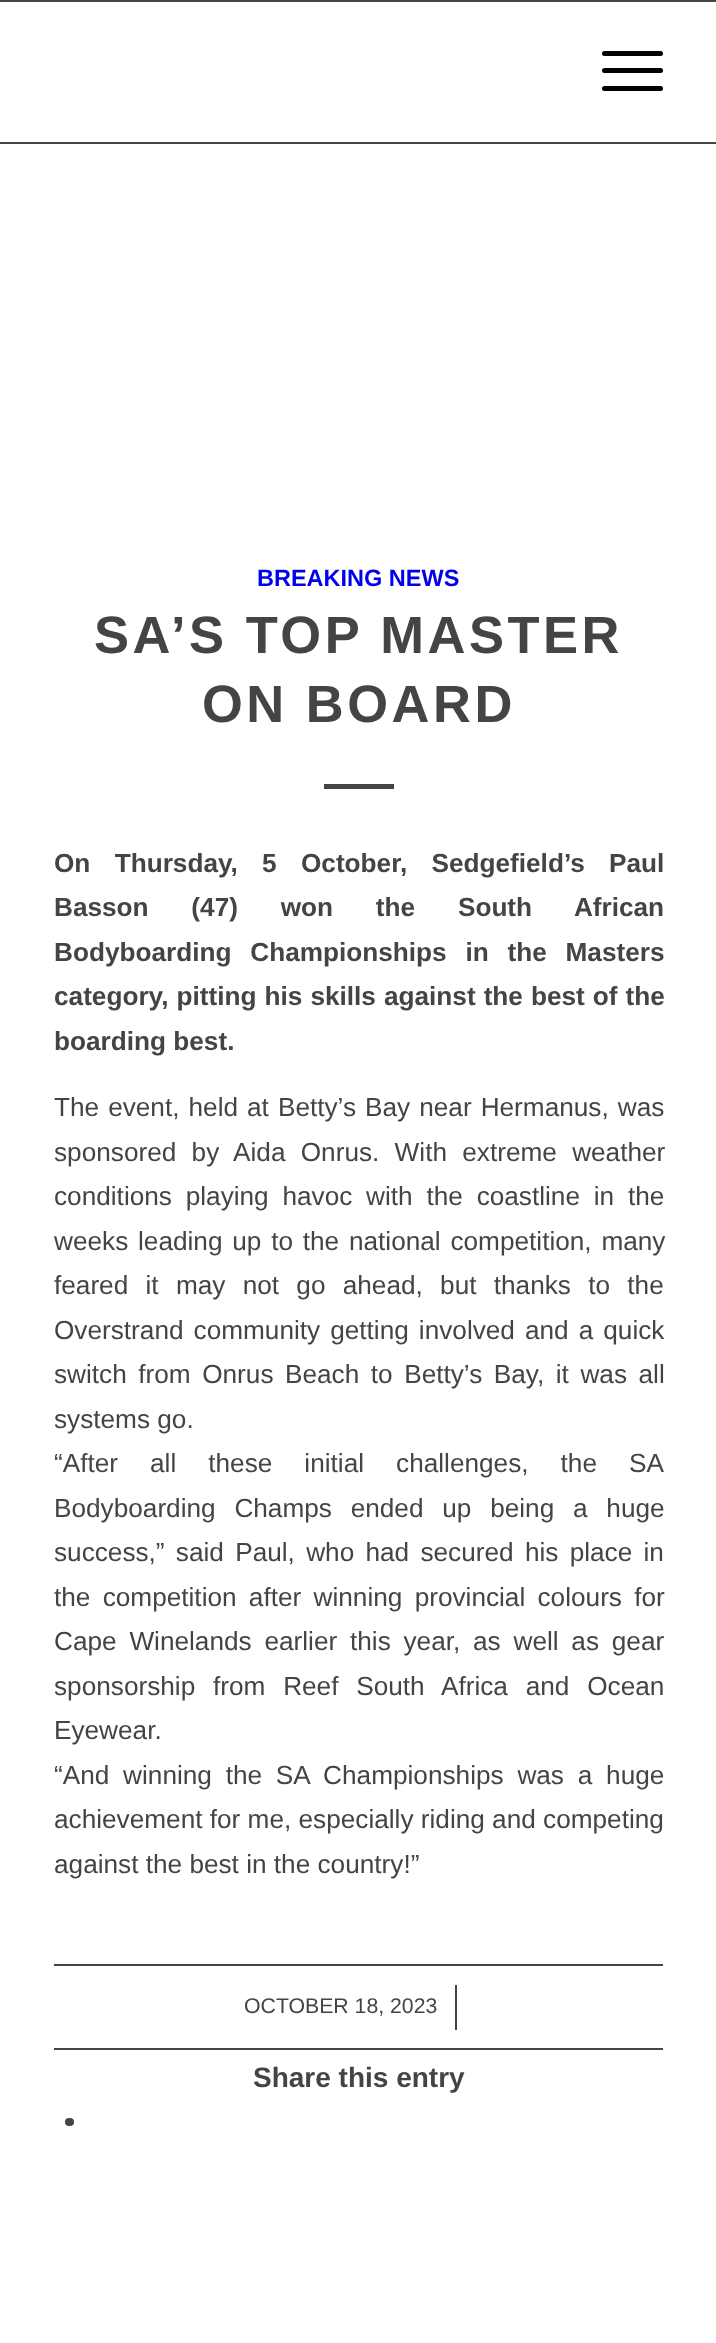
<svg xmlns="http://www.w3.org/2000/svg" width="716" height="2343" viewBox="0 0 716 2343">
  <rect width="100%" height="100%" fill="#fff"/>
  <path d="M0 0h716v2H0z" fill="#444"/>
  <path d="M0 142h716v2H0z" fill="#444"/>
  <rect x="602" y="68" width="61" height="5" rx="2.5" fill="#000"/>
  <rect x="602" y="51" width="61" height="5" rx="2.5" fill="#000"/>
  <rect x="602" y="86" width="61" height="5" rx="2.5" fill="#000"/>
  <path d="M324 784h70v5H324z" fill="#444"/>
  <path d="M54 1964h609v2H54z" fill="#444"/>
  <path d="M54 2048h609v2H54z" fill="#444"/>
  <path d="M455 1985h2v45H455z" fill="#444"/>
  <rect x="65" y="2118" width="9" height="8" rx="4" fill="#444"/>
  <text x="257" y="586" font-family="Liberation Sans" font-size="23.5" font-weight="bold" fill="#00e">BREAKING NEWS</text>
  <g font-family="Liberation Sans" font-size="52.5" font-weight="bold" letter-spacing="3.5" fill="#444">
    <text x="94" y="653">SA’S TOP MASTER</text>
    <text x="202" y="722">ON BOARD</text>
  </g>
  <g font-family="Liberation Sans" font-size="26.2" font-weight="bold" fill="#444">
    <text x="54" y="872" word-spacing="17">On Thursday, 5 October, Sedgefield’s Paul</text>
    <text x="54" y="916" word-spacing="35.5">Basson (47) won the South African</text>
    <text x="54" y="961" word-spacing="11.5">Bodyboarding Championships in the Masters</text>
    <text x="54" y="1005" word-spacing="0.75">category, pitting his skills against the best of the</text>
    <text x="54" y="1050">boarding best.</text>
  </g>
  <g font-family="Liberation Sans" font-size="26.2" fill="#444">
    <text x="54" y="1116" word-spacing="1.75">The event, held at Betty’s Bay near Hermanus, was</text>
    <text x="54" y="1161" word-spacing="8">sponsored by Aida Onrus. With extreme weather</text>
    <text x="54" y="1205" word-spacing="6.5">conditions playing havoc with the coastline in the</text>
    <text x="54" y="1250" word-spacing="2.5">weeks leading up to the national competition, many</text>
    <text x="54" y="1294" word-spacing="10">feared it may not go ahead, but thanks to the</text>
    <text x="54" y="1339" word-spacing="2.75">Overstrand community getting involved and a quick</text>
    <text x="54" y="1383" word-spacing="4.25">switch from Onrus Beach to Betty’s Bay, it was all</text>
    <text x="54" y="1428">systems go.</text>
    <text x="54" y="1472" word-spacing="24.75">“After all these initial challenges, the SA</text>
    <text x="54" y="1517" word-spacing="11.5">Bodyboarding Champs ended up being a huge</text>
    <text x="54" y="1561" word-spacing="4">success,” said Paul, who had secured his place in</text>
    <text x="54" y="1606" word-spacing="5">the competition after winning provincial colours for</text>
    <text x="54" y="1650" word-spacing="5.5">Cape Winelands earlier this year, as well as gear</text>
    <text x="54" y="1695" word-spacing="10.5">sponsorship from Reef South Africa and Ocean</text>
    <text x="54" y="1739">Eyewear.</text>
    <text x="54" y="1784" word-spacing="6.5">“And winning the SA Championships was a huge</text>
    <text x="54" y="1828">achievement for me, especially riding and competing</text>
    <text x="54" y="1873">against the best in the country!”</text>
  </g>
  <text x="244" y="2013" font-family="Liberation Sans" font-size="21.25" fill="#444">OCTOBER 18, 2023</text>
  <text x="253" y="2087" font-family="Liberation Sans" font-size="28" font-weight="bold" fill="#444">Share this entry</text>
</svg>
